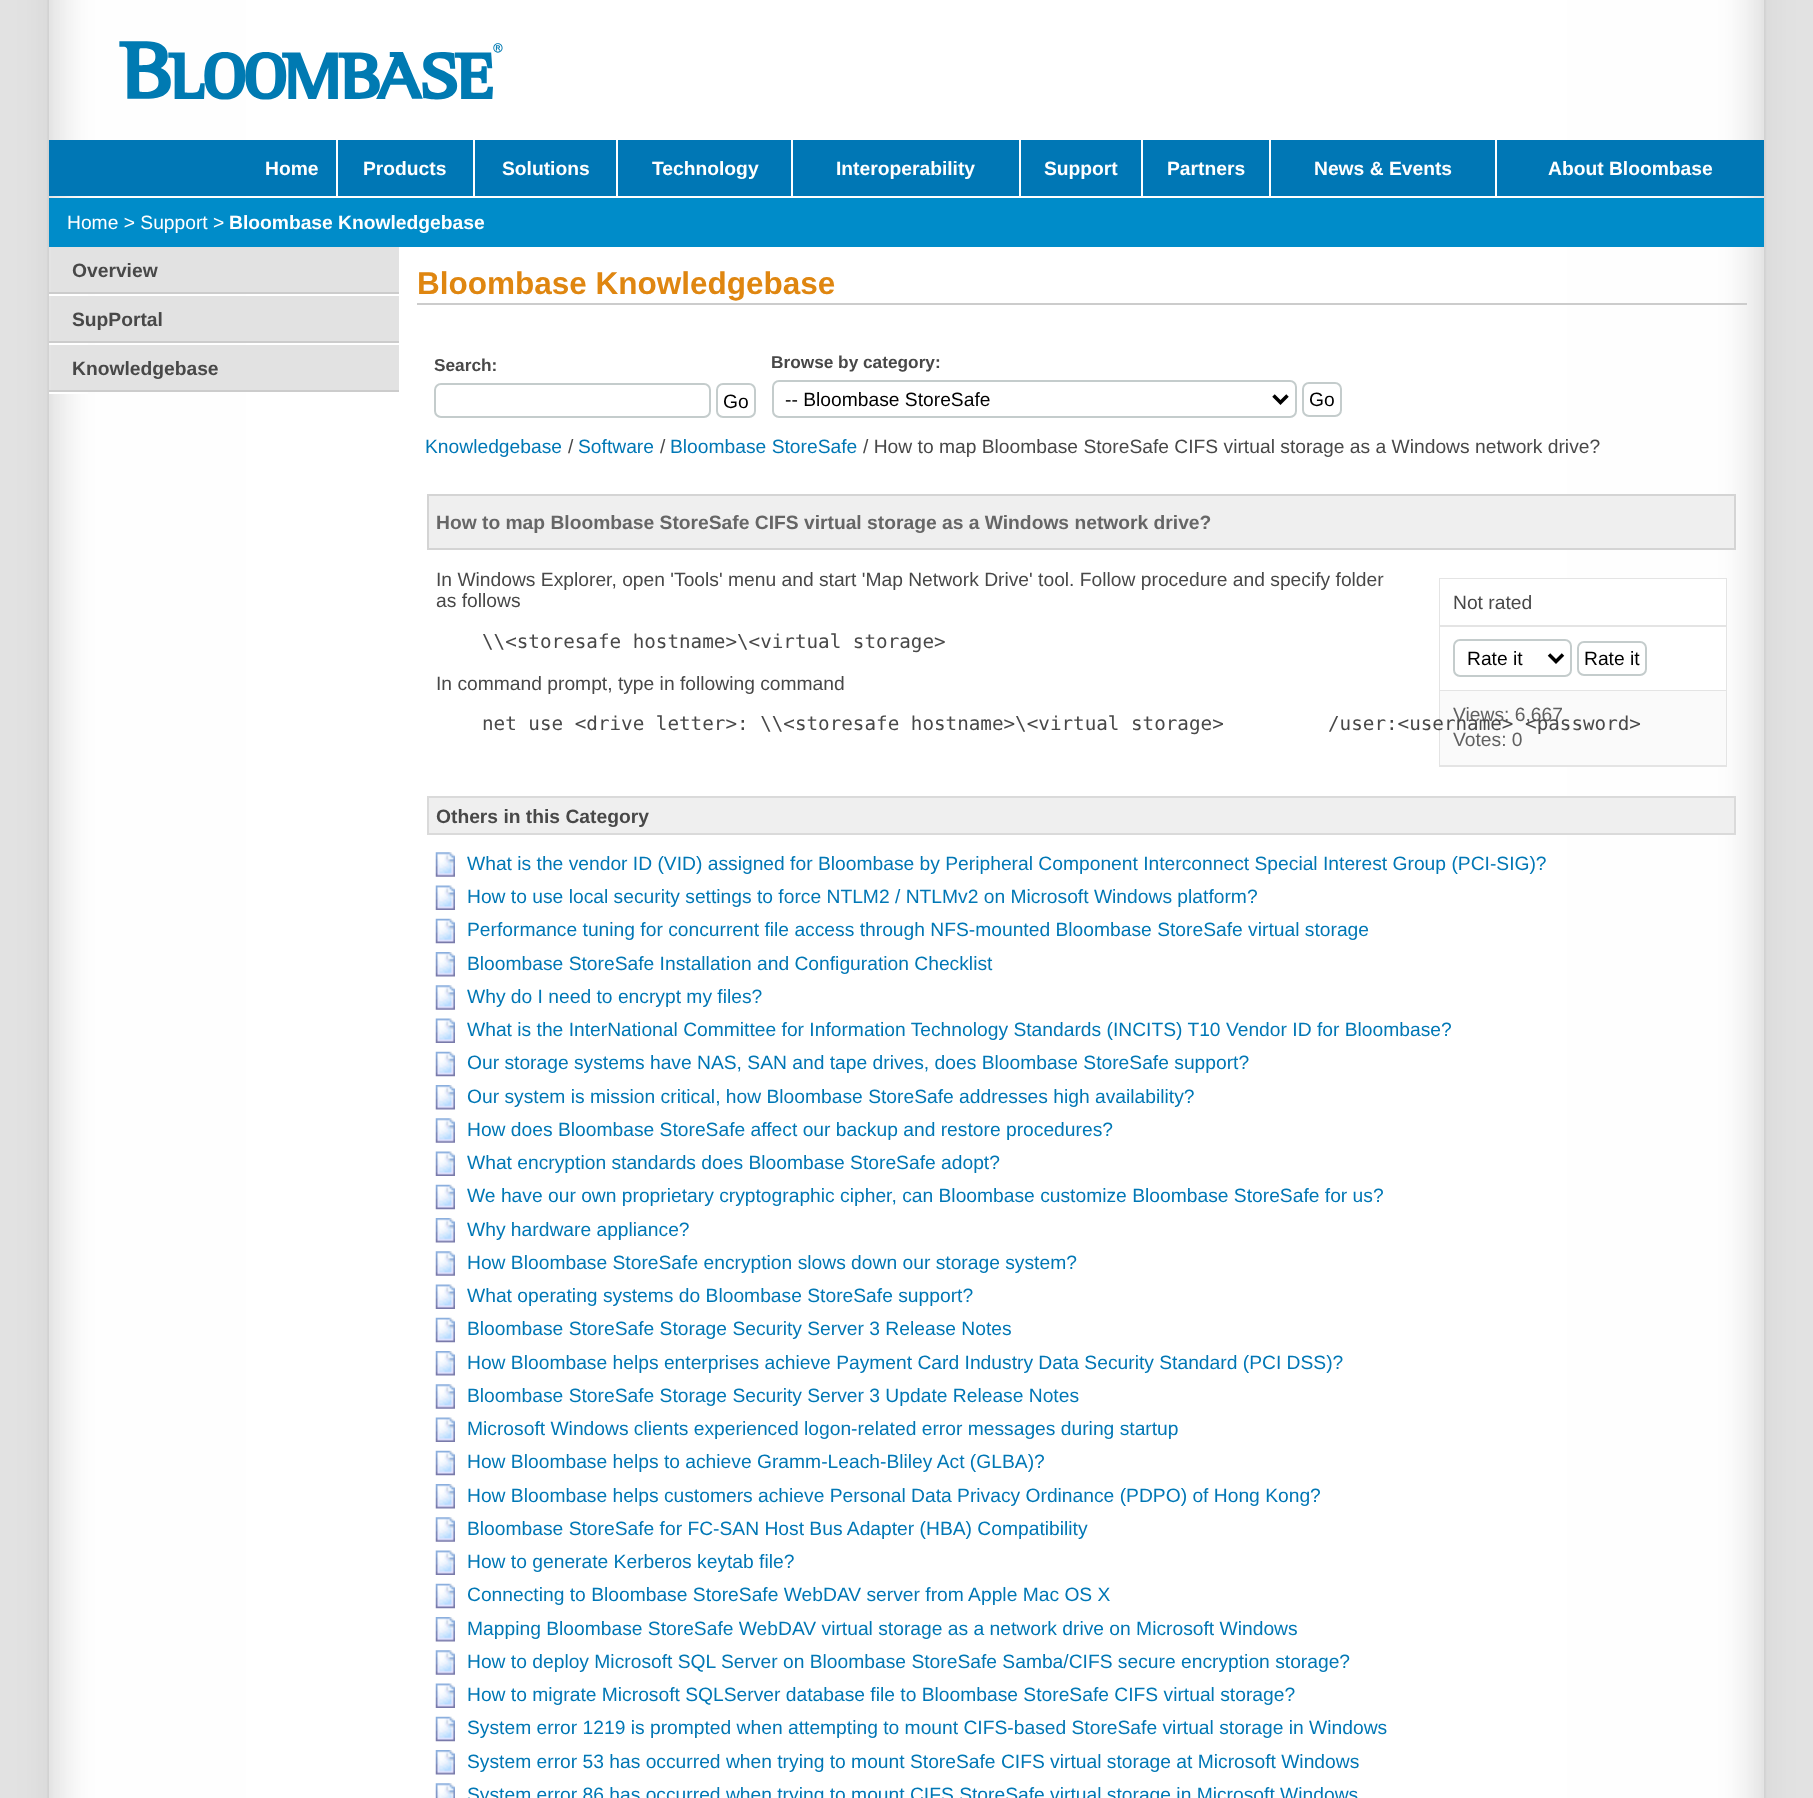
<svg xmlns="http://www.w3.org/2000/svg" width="1813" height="1798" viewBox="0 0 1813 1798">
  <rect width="100%" height="100%" fill="#fff"/>
  <image x="0" y="0" width="49" height="1798" href="img/1.png"/>
  <image x="49" y="0" width="1715" height="1798" href="img/2.png"/>
  <image x="119" y="41" width="384" height="59" href="img/3.png"/>
  <path d="M49 140h1715v56H49z" fill="#0077b5"/>
  <path d="M336 140h2v56H336z" fill="#fff"/>
  <path d="M473 140h2v56H473z" fill="#fff"/>
  <path d="M616 140h2v56H616z" fill="#fff"/>
  <path d="M791 140h2v56H791z" fill="#fff"/>
  <path d="M1019 140h2v56H1019z" fill="#fff"/>
  <path d="M1141 140h2v56H1141z" fill="#fff"/>
  <path d="M1269 140h2v56H1269z" fill="#fff"/>
  <path d="M1495 140h2v56H1495z" fill="#fff"/>
  <path d="M49 198h1715v49H49z" fill="#008cc9"/>
  <path d="M51 247h348v45H51z" fill="#e2e2e2"/>
  <path d="M49 292h350v2H49z" fill="#ccc"/>
  <path d="M49 294h39v2H49z" fill="#fff"/>
  <path d="M51 296h348v45H51z" fill="#e2e2e2"/>
  <path d="M49 341h350v2H49z" fill="#ccc"/>
  <path d="M49 343h39v2H49z" fill="#fff"/>
  <path d="M51 345h348v45H51z" fill="#e2e2e2"/>
  <path d="M49 390h350v2H49z" fill="#ccc"/>
  <path d="M49 392h39v2H49z" fill="#fff"/>
  <path d="M417 303h1330v2H417z" fill="#ccc"/>
  <rect x="435" y="384" width="275" height="33" rx="6" fill="none" stroke="#c4cccc" stroke-width="2"/>
  <rect x="717" y="384" width="38" height="33" rx="6" fill="none" stroke="#c4cccc" stroke-width="2"/>
  <rect x="773" y="381" width="523" height="36" rx="6" fill="none" stroke="#c4cccc" stroke-width="2"/>
  <path d="M1273.5 395.5L1280.5 402.5L1287.5 395.5" fill="none" stroke="#000" stroke-width="3.5"/>
  <rect x="1303" y="383" width="38" height="33" rx="6" fill="none" stroke="#c4cccc" stroke-width="2"/>
  <path d="M428 495h1307v54H428z" fill="#efefef" stroke="#d4d4d4" stroke-width="2"/>
  <path d="M1439 578h288v189H1439z" fill="#e4e4e4"/>
  <path d="M1440 579h286v46H1440z" fill="#fff"/>
  <path d="M1440 627h286v63H1440z" fill="#fff"/>
  <rect x="1454" y="640" width="117" height="36" rx="6" fill="none" stroke="#c4cccc" stroke-width="2"/>
  <path d="M1549 654.5L1556 661.5L1563 654.5" fill="none" stroke="#000" stroke-width="3.5"/>
  <rect x="1578" y="642" width="68" height="33" rx="6" fill="none" stroke="#c4cccc" stroke-width="2"/>
  <path d="M1440 691h286v74H1440z" fill="#fafafa"/>
  <path d="M428 797h1307v37H428z" fill="#efefef" stroke="#dadada" stroke-width="2"/>
  <image x="435" y="852" width="20" height="25" href="img/4.png"/>
  <image x="435" y="885" width="20" height="25" href="img/5.png"/>
  <image x="435" y="918" width="20" height="26" href="img/6.png"/>
  <image x="435" y="952" width="20" height="25" href="img/7.png"/>
  <image x="435" y="985" width="20" height="25" href="img/4.png"/>
  <image x="435" y="1018" width="20" height="25" href="img/5.png"/>
  <image x="435" y="1051" width="20" height="26" href="img/6.png"/>
  <image x="435" y="1085" width="20" height="25" href="img/7.png"/>
  <image x="435" y="1118" width="20" height="25" href="img/4.png"/>
  <image x="435" y="1151" width="20" height="25" href="img/5.png"/>
  <image x="435" y="1184" width="20" height="26" href="img/6.png"/>
  <image x="435" y="1218" width="20" height="25" href="img/7.png"/>
  <image x="435" y="1251" width="20" height="25" href="img/4.png"/>
  <image x="435" y="1284" width="20" height="25" href="img/5.png"/>
  <image x="435" y="1317" width="20" height="26" href="img/6.png"/>
  <image x="435" y="1351" width="20" height="25" href="img/7.png"/>
  <image x="435" y="1384" width="20" height="25" href="img/4.png"/>
  <image x="435" y="1417" width="20" height="25" href="img/5.png"/>
  <image x="435" y="1450" width="20" height="26" href="img/6.png"/>
  <image x="435" y="1484" width="20" height="25" href="img/7.png"/>
  <image x="435" y="1517" width="20" height="25" href="img/4.png"/>
  <image x="435" y="1550" width="20" height="25" href="img/5.png"/>
  <image x="435" y="1583" width="20" height="26" href="img/6.png"/>
  <image x="435" y="1617" width="20" height="25" href="img/7.png"/>
  <image x="435" y="1650" width="20" height="25" href="img/4.png"/>
  <image x="435" y="1683" width="20" height="25" href="img/5.png"/>
  <image x="435" y="1716" width="20" height="26" href="img/6.png"/>
  <image x="435" y="1750" width="20" height="25" href="img/7.png"/>
  <image x="435" y="1783" width="20" height="15" href="img/8.png"/>
  <image x="1764" y="0" width="49" height="1798" href="img/9.png"/>
  <g font-family="Liberation Sans" font-size="19.25" font-weight="bold" fill="#fff">
    <text x="265" y="175">Home</text>
    <text x="363" y="175">Products</text>
    <text x="502" y="175">Solutions</text>
    <text x="652" y="175">Technology</text>
    <text x="836" y="175">Interoperability</text>
    <text x="1044" y="175">Support</text>
    <text x="1167" y="175">Partners</text>
    <text x="1314" y="175">News &amp; Events</text>
    <text x="1548" y="175">About Bloombase</text>
  </g>
  <text x="67" y="229" font-family="Liberation Sans" font-size="19.25" fill="#fff">Home &gt; Support &gt;</text>
  <text x="229" y="229" font-family="Liberation Sans" font-size="19.25" font-weight="bold" fill="#fff">Bloombase Knowledgebase</text>
  <g font-family="Liberation Sans" font-size="19.25" font-weight="bold" fill="#484848">
    <text x="72" y="277">Overview</text>
    <text x="72" y="326">SupPortal</text>
    <text x="72" y="375">Knowledgebase</text>
  </g>
  <text x="417" y="294" font-family="Liberation Sans" font-size="31.5" font-weight="bold" fill="#df8610">Bloombase Knowledgebase</text>
  <text x="434" y="371" font-family="Liberation Sans" font-size="17.25" font-weight="bold" fill="#484848">Search:</text>
  <text x="723" y="408" font-family="Liberation Sans" font-size="19.25" fill="#000">Go</text>
  <text x="771" y="368" font-family="Liberation Sans" font-size="17.25" font-weight="bold" fill="#484848">Browse by category:</text>
  <g font-family="Liberation Sans" font-size="19.25" fill="#000">
    <text x="785" y="406">-- Bloombase StoreSafe</text>
    <text x="1309" y="406">Go</text>
  </g>
  <text x="425" y="453" font-family="Liberation Sans" font-size="19.25" fill="#0077b5">Knowledgebase</text>
  <text x="568" y="453" font-family="Liberation Sans" font-size="19.25" fill="#484848">/</text>
  <text x="578" y="453" font-family="Liberation Sans" font-size="19.25" fill="#0077b5">Software</text>
  <text x="660" y="453" font-family="Liberation Sans" font-size="19.25" fill="#484848">/</text>
  <text x="670" y="453" font-family="Liberation Sans" font-size="19.25" fill="#0077b5">Bloombase StoreSafe</text>
  <text x="863" y="453" font-family="Liberation Sans" font-size="19.25" fill="#484848">/ How to map Bloombase StoreSafe CIFS virtual storage as a Windows network drive?</text>
  <text x="436" y="529" font-family="Liberation Sans" font-size="19.25" font-weight="bold" fill="#666">How to map Bloombase StoreSafe CIFS virtual storage as a Windows network drive?</text>
  <g font-family="Liberation Sans" font-size="19.25" fill="#484848">
    <text x="436" y="586">In Windows Explorer, open 'Tools' menu and start 'Map Network Drive' tool. Follow procedure and specify folder</text>
    <text x="436" y="607">as follows</text>
  </g>
  <text x="482" y="648" font-family="DejaVu Sans Mono" font-size="19.25" fill="#484848">\\&lt;storesafe hostname&gt;\&lt;virtual storage&gt;</text>
  <g font-family="Liberation Sans" font-size="19.25" fill="#484848">
    <text x="436" y="690">In command prompt, type in following command</text>
    <text x="1453" y="609">Not rated</text>
  </g>
  <g font-family="Liberation Sans" font-size="19.25" fill="#000">
    <text x="1467" y="665">Rate it</text>
    <text x="1584" y="665">Rate it</text>
  </g>
  <text x="1453" y="721" font-family="Liberation Sans" font-size="19.25" fill="#606060">Views: 6,667</text>
  <text x="482" y="730" font-family="DejaVu Sans Mono" font-size="19.25" fill="#484848" xml:space="preserve">net use &lt;drive letter&gt;: \\&lt;storesafe hostname&gt;\&lt;virtual storage&gt;         /user:&lt;username&gt; &lt;password&gt;</text>
  <text x="1453" y="746" font-family="Liberation Sans" font-size="19.25" fill="#606060">Votes: 0</text>
  <text x="436" y="823" font-family="Liberation Sans" font-size="19.25" font-weight="bold" fill="#484848">Others in this Category</text>
  <g font-family="Liberation Sans" font-size="19.25" fill="#0077b5">
    <text x="467" y="870">What is the vendor ID (VID) assigned for Bloombase by Peripheral Component Interconnect Special Interest Group (PCI-SIG)?</text>
    <text x="467" y="903">How to use local security settings to force NTLM2 / NTLMv2 on Microsoft Windows platform?</text>
    <text x="467" y="936">Performance tuning for concurrent file access through NFS-mounted Bloombase StoreSafe virtual storage</text>
    <text x="467" y="970">Bloombase StoreSafe Installation and Configuration Checklist</text>
    <text x="467" y="1003">Why do I need to encrypt my files?</text>
    <text x="467" y="1036">What is the InterNational Committee for Information Technology Standards (INCITS) T10 Vendor ID for Bloombase?</text>
    <text x="467" y="1069">Our storage systems have NAS, SAN and tape drives, does Bloombase StoreSafe support?</text>
    <text x="467" y="1103">Our system is mission critical, how Bloombase StoreSafe addresses high availability?</text>
    <text x="467" y="1136">How does Bloombase StoreSafe affect our backup and restore procedures?</text>
    <text x="467" y="1169">What encryption standards does Bloombase StoreSafe adopt?</text>
    <text x="467" y="1202">We have our own proprietary cryptographic cipher, can Bloombase customize Bloombase StoreSafe for us?</text>
    <text x="467" y="1236">Why hardware appliance?</text>
    <text x="467" y="1269">How Bloombase StoreSafe encryption slows down our storage system?</text>
    <text x="467" y="1302">What operating systems do Bloombase StoreSafe support?</text>
    <text x="467" y="1335">Bloombase StoreSafe Storage Security Server 3 Release Notes</text>
    <text x="467" y="1369">How Bloombase helps enterprises achieve Payment Card Industry Data Security Standard (PCI DSS)?</text>
    <text x="467" y="1402">Bloombase StoreSafe Storage Security Server 3 Update Release Notes</text>
    <text x="467" y="1435">Microsoft Windows clients experienced logon-related error messages during startup</text>
    <text x="467" y="1468">How Bloombase helps to achieve Gramm-Leach-Bliley Act (GLBA)?</text>
    <text x="467" y="1502">How Bloombase helps customers achieve Personal Data Privacy Ordinance (PDPO) of Hong Kong?</text>
    <text x="467" y="1535">Bloombase StoreSafe for FC-SAN Host Bus Adapter (HBA) Compatibility</text>
    <text x="467" y="1568">How to generate Kerberos keytab file?</text>
    <text x="467" y="1601">Connecting to Bloombase StoreSafe WebDAV server from Apple Mac OS X</text>
    <text x="467" y="1635">Mapping Bloombase StoreSafe WebDAV virtual storage as a network drive on Microsoft Windows</text>
    <text x="467" y="1668">How to deploy Microsoft SQL Server on Bloombase StoreSafe Samba/CIFS secure encryption storage?</text>
    <text x="467" y="1701">How to migrate Microsoft SQLServer database file to Bloombase StoreSafe CIFS virtual storage?</text>
    <text x="467" y="1734">System error 1219 is prompted when attempting to mount CIFS-based StoreSafe virtual storage in Windows</text>
    <text x="467" y="1768">System error 53 has occurred when trying to mount StoreSafe CIFS virtual storage at Microsoft Windows</text>
    <text x="467" y="1801">System error 86 has occurred when trying to mount CIFS StoreSafe virtual storage in Microsoft Windows</text>
  </g>
</svg>
